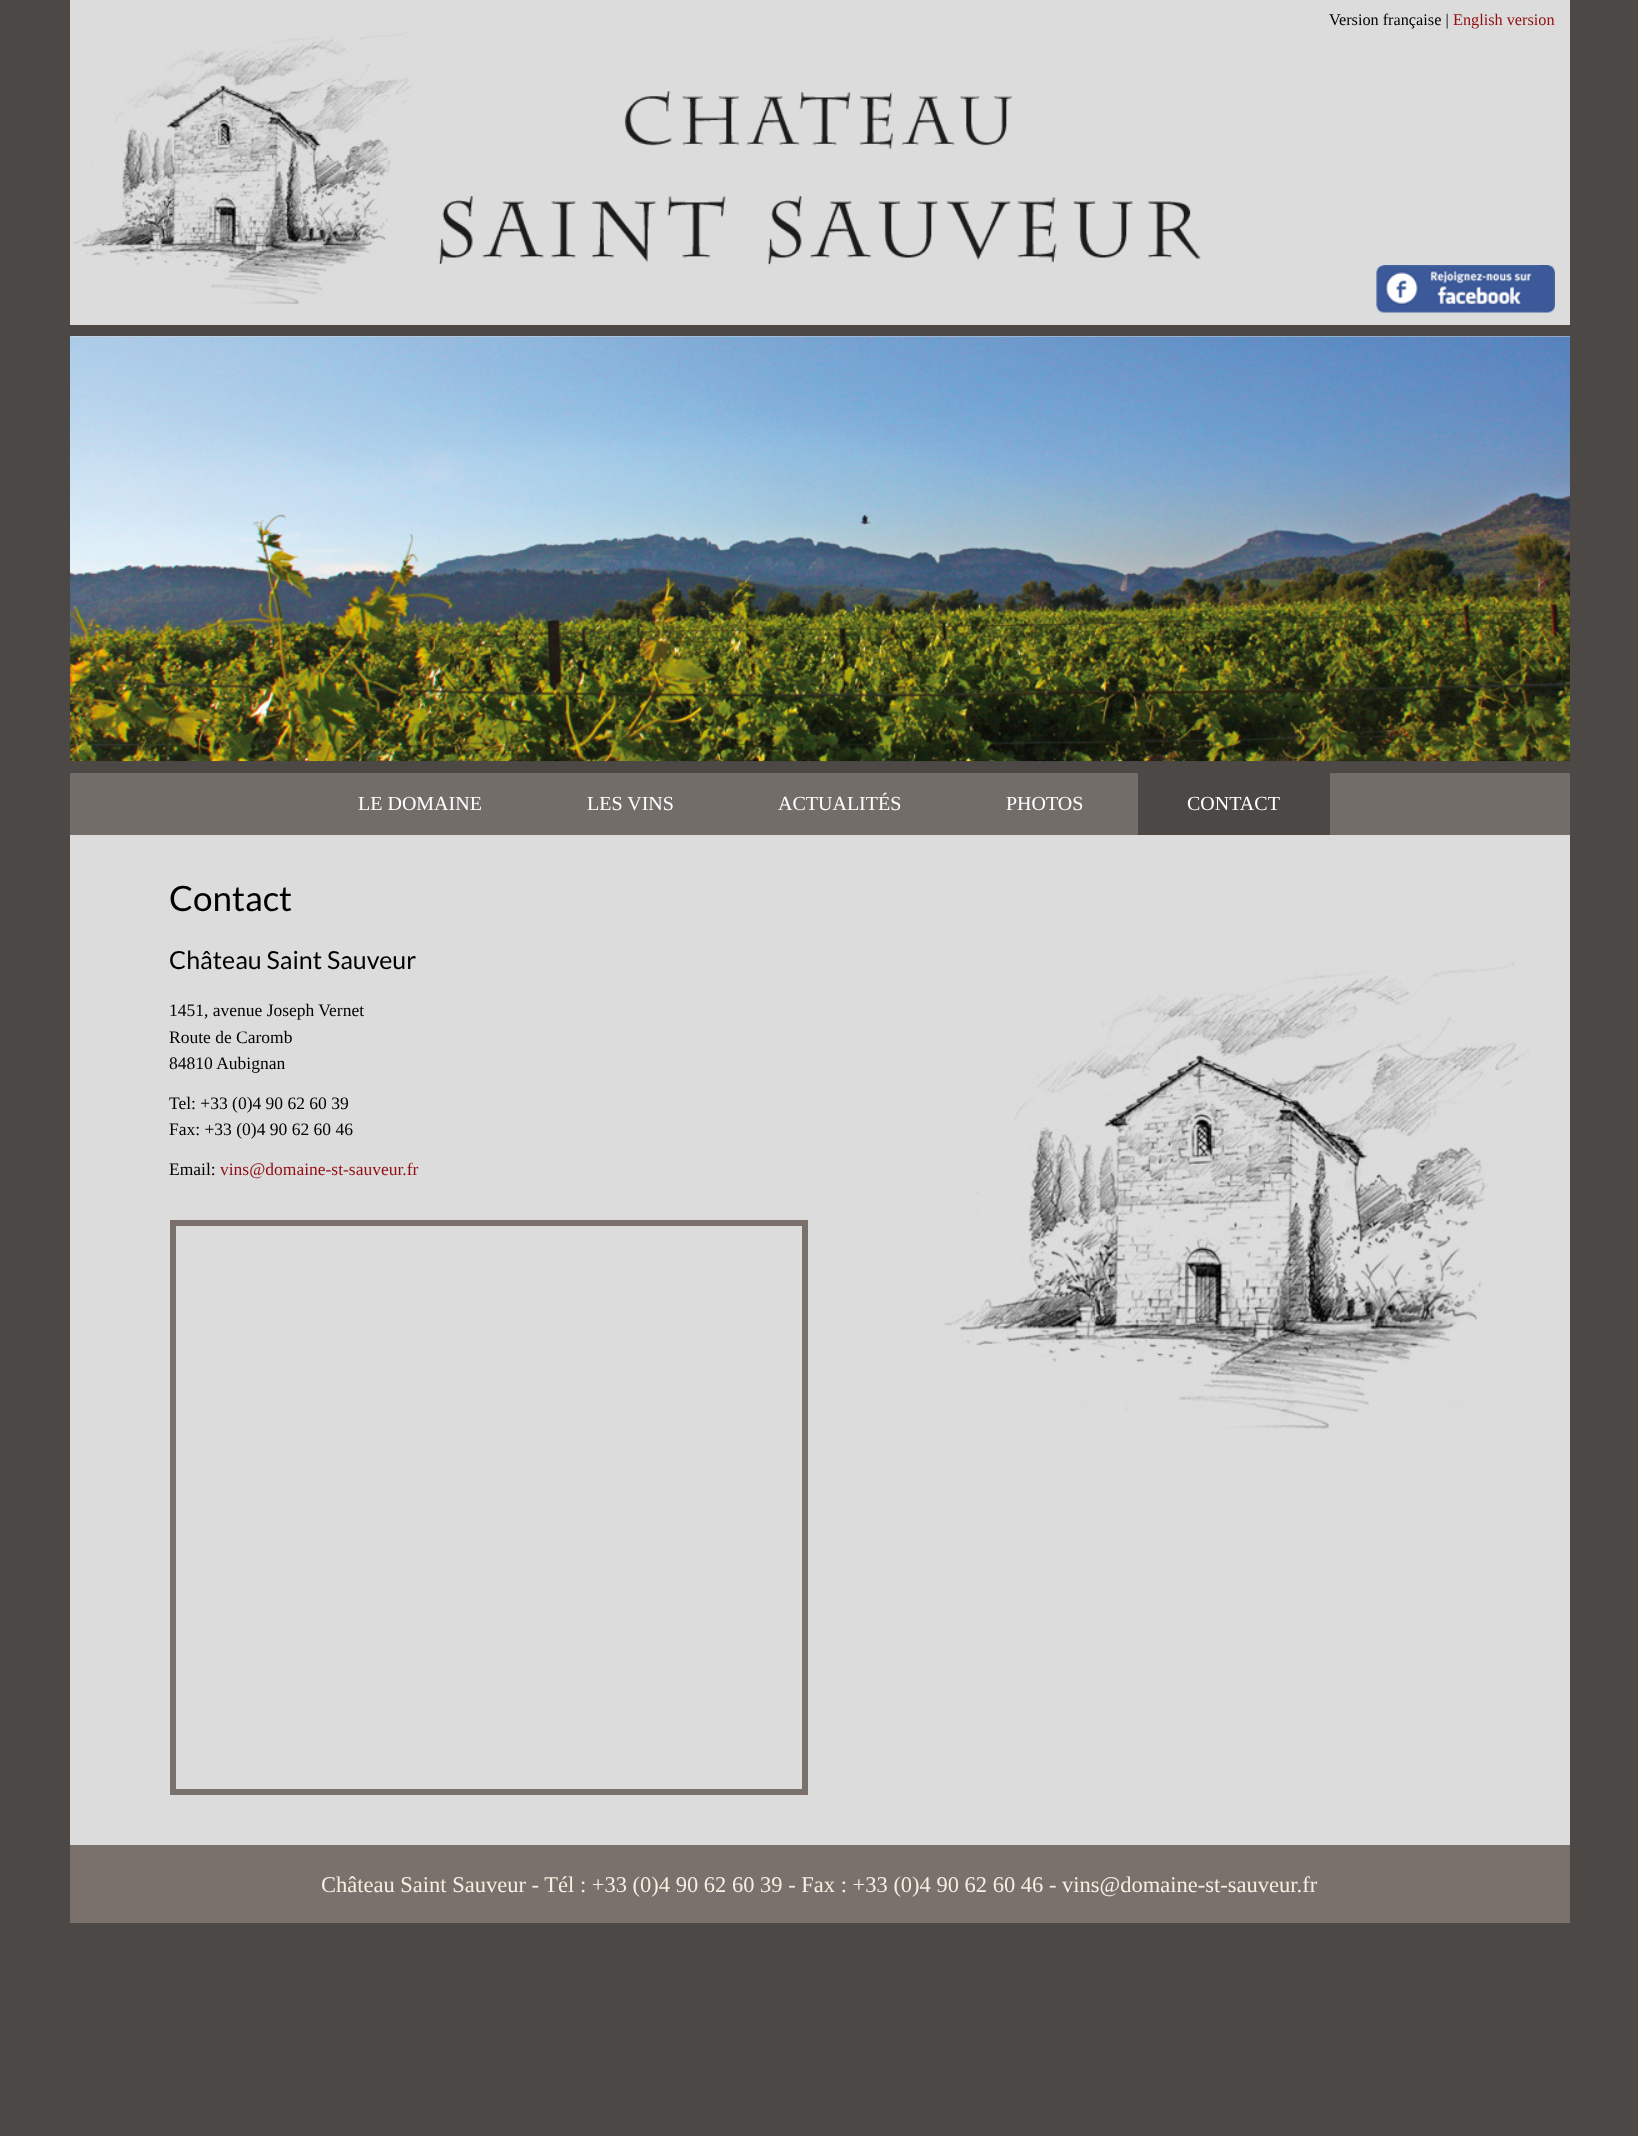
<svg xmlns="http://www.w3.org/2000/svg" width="1638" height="2136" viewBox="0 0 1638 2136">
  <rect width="100%" height="100%" fill="#4b4846"/>
  <path d="M70 0h1500v1845H70z" fill="#dcdcdc"/>
  <image x="72" y="31" width="340" height="273" href="img/1.png"/>
  <image x="438" y="91" width="763" height="174" href="img/2.png"/>
  <image x="1376" y="265" width="179" height="48" href="img/3.png"/>
  <path d="M70 325h1500v11H70z" fill="#4b4846"/>
  <path d="M70 761h1500v12H70z" fill="#4b4846"/>
  <image x="70" y="336" width="1500" height="426" href="img/4.png"/>
  <path d="M70 773h1500v62H70z" fill="#736d69"/>
  <path d="M1138 773h192v62H1138z" fill="#4b4846"/>
  <image x="943" y="961" width="587" height="468" href="img/5.png"/>
  <path d="M173 1223h632v569H173z" fill="none" stroke="#7a706c" stroke-width="6"/>
  <path d="M70 1845h1500v78H70z" fill="#7a706c"/>
  <text x="1329" y="25" font-family="Liberation Serif" font-size="16.25" fill="#000">Version française |</text>
  <text x="1453" y="25" font-family="Liberation Serif" font-size="16.25" fill="#910d10">English version</text>
  <g font-family="Liberation Serif" font-size="20" fill="#fff">
    <text x="358" y="810">LE DOMAINE</text>
    <text x="587" y="810">LES VINS</text>
    <text x="778" y="810">ACTUALITÉS</text>
    <text x="1006" y="810">PHOTOS</text>
    <text x="1187" y="810">CONTACT</text>
  </g>
  <text x="169" y="911" font-family="Lato" font-size="35" fill="#000">Contact</text>
  <text x="169" y="969" font-family="Lato" font-size="25" fill="#000">Château Saint Sauveur</text>
  <g font-family="Liberation Serif" font-size="17.5" fill="#000">
    <text x="169" y="1016">1451, avenue Joseph Vernet</text>
    <text x="169" y="1043">Route de Caromb</text>
    <text x="169" y="1069">84810 Aubignan</text>
    <text x="169" y="1109">Tel: +33 (0)4 90 62 60 39</text>
    <text x="169" y="1135">Fax: +33 (0)4 90 62 60 46</text>
    <text x="169" y="1175">Email:</text>
  </g>
  <text x="220" y="1175" font-family="Liberation Serif" font-size="17.5" fill="#910d10">vins@domaine-st-sauveur.fr</text>
  <text x="321" y="1892" font-family="Liberation Serif" font-size="22.5" fill="#f5f0e0">Château Saint Sauveur - Tél : +33 (0)4 90 62 60 39 - Fax : +33 (0)4 90 62 60 46 - vins@domaine-st-sauveur.fr</text>
</svg>
